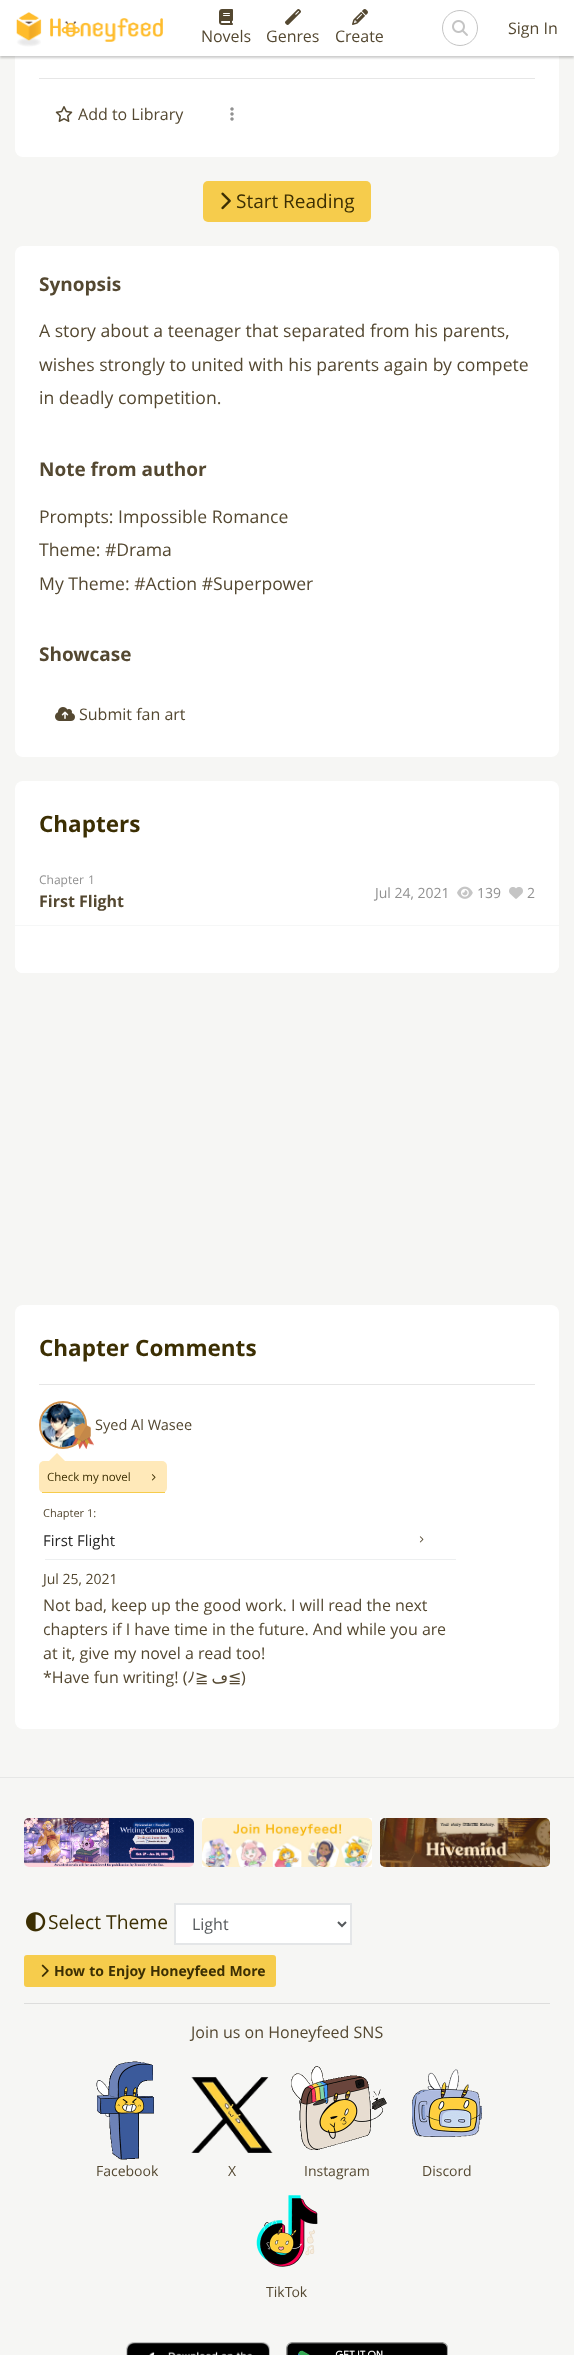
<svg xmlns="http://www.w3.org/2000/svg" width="574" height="2355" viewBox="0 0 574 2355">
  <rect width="100%" height="100%" fill="#f6f6f4"/>
  <rect x="15" y="-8" width="544" height="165" rx="8" fill="#fff"/>
  <path d="M0 2h574v56H0z" fill="#00000033" filter="blur(1px)"/>
  <path d="M0 0h574v56H0z" fill="#fff"/>
  <image x="16" y="12" width="26" height="35" href="img/1.png"/>
  <image x="50" y="18" width="113" height="24" href="img/2.png"/>
  <image x="219" y="9" width="14" height="16" href="img/3.png"/>
  <image x="285" y="9" width="16" height="16" href="img/4.png"/>
  <image x="352" y="9" width="16" height="16" href="img/5.png"/>
  <circle cx="460" cy="28" r="17.5" fill="none" stroke="#c4c4c4"/>
  <image x="452" y="20" width="16" height="16" href="img/6.png"/>
  <path d="M39 78h496v1H39z" fill="#e6e6e6"/>
  <image x="55" y="106" width="18" height="16" href="img/7.png"/>
  <image x="230" y="107" width="4" height="14" href="img/8.png"/>
  <rect x="203" y="181" width="168" height="41" rx="5" fill="#f6cc4c"/>
  <image x="221" y="192" width="10" height="18" href="img/9.png"/>
  <rect x="15" y="246" width="544" height="511" rx="8" fill="#fff"/>
  <image x="55" y="707" width="20" height="14" href="img/10.png"/>
  <rect x="15" y="781" width="544" height="192" rx="8" fill="#fff"/>
  <path d="M18 859H556C557.5 859 559 860.5 559 862V965C559 969.5 555.5 973 551 973H23C18.5 973 15 969.5 15 965V862C15 860.5 16.5 859 18 859Z" fill="#fff"/>
  <path d="M15 925h544v1H15z" fill="#f6f7f7"/>
  <image x="457" y="886" width="16" height="13" href="img/11.png"/>
  <image x="509" y="887" width="14" height="12" href="img/12.png"/>
  <rect x="15" y="1305" width="544" height="424" rx="8" fill="#fff"/>
  <path d="M39 1384h496v1H39z" fill="#e6e6e6"/>
  <circle cx="63" cy="1425" r="23" fill="none" stroke="#d1914b" stroke-width="2"/>
  <image x="41" y="1403" width="44" height="44" href="img/13.png"/>
  <image x="72" y="1423" width="22" height="26" href="img/14.png"/>
  <rect x="39" y="1461" width="128" height="32" rx="5" fill="#ffe9b9"/>
  <path d="M42 1492h123v1H42z" fill="#f6cc4c"/>
  <path d="M65 1461H49L57 1453Z" fill="#ffe9b9"/>
  <image x="151" y="1474" width="5" height="7" href="img/15.png"/>
  <path d="M45 1559h411v1H45z" fill="#edeff0"/>
  <image x="419" y="1536" width="5" height="7" href="img/16.png"/>
  <path d="M0 1777h574v1H0z" fill="#e6e7e6"/>
  <image x="24" y="1818" width="170" height="49" href="img/17.png"/>
  <path d="M202 1818h170v49H202z" fill="#fff"/>
  <image x="202" y="1818" width="170" height="49" href="img/18.png"/>
  <path d="M380 1818h170v49H380z" fill="#fff"/>
  <image x="380" y="1818" width="170" height="49" href="img/19.png"/>
  <image x="26" y="1912" width="20" height="20" href="img/20.png"/>
  <path d="M175 1904h176v40H175z" fill="#fff" stroke="#e4e6e8" stroke-width="2"/>
  <path d="M338 1922L342 1926L346 1922" fill="none" stroke="#55595c" stroke-width="2"/>
  <rect x="24" y="1955" width="252" height="32" rx="3" fill="#f6cc4c"/>
  <image x="41" y="1964" width="8" height="13" href="img/21.png"/>
  <path d="M24 2003h526v1H24z" fill="#dddddc"/>
  <image x="96" y="2061" width="58" height="99" href="img/22.png"/>
  <image x="191" y="2077" width="82" height="76" href="img/23.png"/>
  <image x="291" y="2066" width="96" height="84" href="img/24.png"/>
  <image x="412" y="2069" width="70" height="68" href="img/25.png"/>
  <image x="256" y="2195" width="62" height="72" href="img/26.png"/>
  <image x="126" y="2342" width="144" height="13" href="img/27.png"/>
  <image x="286" y="2342" width="162" height="13" href="img/28.png"/>
  <g font-family="Open Sans" font-size="16" fill="#544831">
    <text x="201" y="42">Novels</text>
    <text x="266" y="42">Genres</text>
    <text x="335" y="42">Create</text>
    <text x="508" y="34">Sign In</text>
    <text x="78" y="120">Add to Library</text>
  </g>
  <text x="236" y="208" font-family="Open Sans" font-size="19" fill="#3c2f03">Start Reading</text>
  <text x="39" y="291" font-family="Open Sans" font-size="19" font-weight="bold" fill="#544831">Synopsis</text>
  <g font-family="Open Sans" font-size="17.6" fill="#544831">
    <text x="39" y="337">A story about a teenager that separated from his parents,</text>
    <text x="39" y="371">wishes strongly to united with his parents again by compete</text>
    <text x="39" y="404">in deadly competition.</text>
  </g>
  <text x="39" y="476" font-family="Open Sans" font-size="19" font-weight="bold" fill="#544831">Note from author</text>
  <g font-family="Open Sans" font-size="17.6" fill="#544831">
    <text x="39" y="523">Prompts: Impossible Romance</text>
    <text x="39" y="556">Theme: #Drama</text>
    <text x="39" y="590">My Theme: #Action #Superpower</text>
  </g>
  <text x="39" y="661" font-family="Open Sans" font-size="19" font-weight="bold" fill="#544831">Showcase</text>
  <text x="79" y="720" font-family="Open Sans" font-size="16" fill="#544831">Submit fan art</text>
  <text x="39" y="832" font-family="Open Sans" font-size="22.5" font-weight="bold" fill="#3c2f03">Chapters</text>
  <g font-family="Open Sans" font-size="12" fill="#919191">
    <text x="39" y="884">Chapter</text>
    <text x="88" y="884">1</text>
  </g>
  <text x="39" y="907" font-family="Open Sans" font-size="16" font-weight="bold" fill="#544831">First Flight</text>
  <g font-family="Open Sans" font-size="14" fill="#919191">
    <text x="375" y="898">Jul 24, 2021</text>
    <text x="477" y="898">139</text>
    <text x="527" y="898">2</text>
  </g>
  <text x="39" y="1356" font-family="Open Sans" font-size="22.5" font-weight="bold" fill="#3c2f03">Chapter Comments</text>
  <text x="95" y="1430" font-family="Open Sans" font-size="14.5" fill="#544831">Syed Al Wasee</text>
  <text x="47" y="1481" font-family="Open Sans" font-size="11.5" fill="#3c2f03">Check my novel</text>
  <text x="43" y="1517" font-family="Open Sans" font-size="11" fill="#544831">Chapter 1:</text>
  <text x="43" y="1546" font-family="Open Sans" font-size="15" fill="#262626">First Flight</text>
  <text x="43" y="1584" font-family="Open Sans" font-size="14" fill="#544831">Jul 25, 2021</text>
  <g font-family="Open Sans" font-size="16" fill="#544831">
    <text x="43" y="1611">Not bad, keep up the good work. I will read the next</text>
    <text x="43" y="1635">chapters if I have time in the future. And while you are</text>
    <text x="43" y="1659">at it, give my novel a read too!</text>
    <text x="43" y="1683">*Have fun writing! (</text>
  </g>
  <text x="187" y="1683" font-family="IPAGothic" font-size="16" fill="#544831">ﾉ</text>
  <text x="195" y="1683" font-family="DejaVu Sans" font-size="16" fill="#544831">≧</text>
  <text x="228" y="1683" font-family="DejaVu Sans" font-size="16" direction="rtl" fill="#544831">ڡ</text>
  <text x="228" y="1683" font-family="DejaVu Sans" font-size="16" fill="#544831">≦</text>
  <text x="241" y="1683" font-family="Open Sans" font-size="16" fill="#544831">)</text>
  <text x="48" y="1929" font-family="Open Sans" font-size="19.25" fill="#3c2f03">Select Theme</text>
  <text x="192" y="1930" font-family="Open Sans" font-size="16" fill="#55595c">Light</text>
  <text x="54" y="1976" word-spacing="0.5" font-family="Open Sans" font-size="14" font-weight="bold" fill="#3c2f03">How to Enjoy Honeyfeed More</text>
  <text x="191" y="2038" font-family="Open Sans" font-size="16" fill="#544831">Join us on Honeyfeed SNS</text>
  <g font-family="Open Sans" font-size="14" fill="#544831">
    <text x="96" y="2176">Facebook</text>
    <text x="228" y="2176">X</text>
    <text x="304" y="2176">Instagram</text>
    <text x="422" y="2176">Discord</text>
    <text x="266" y="2297">TikTok</text>
  </g>
</svg>
